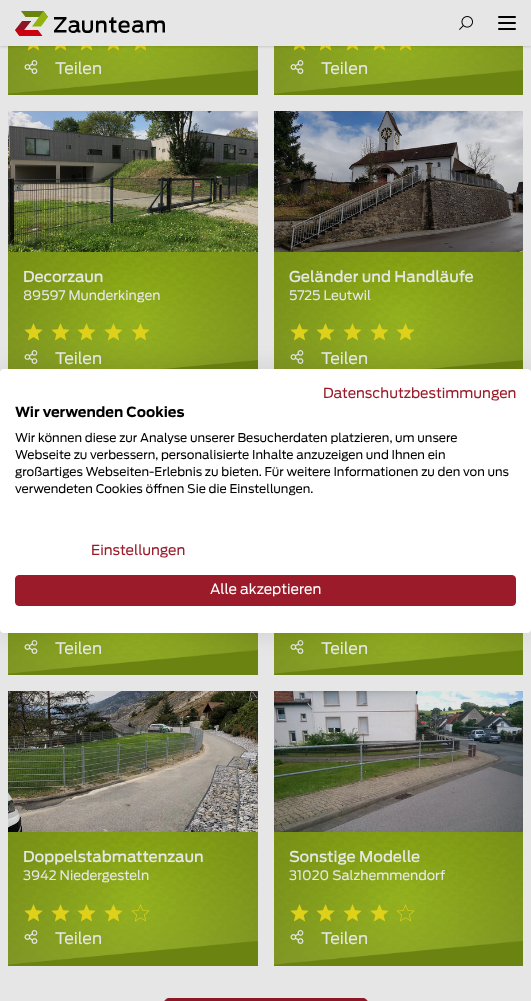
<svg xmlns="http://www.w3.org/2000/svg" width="531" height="1001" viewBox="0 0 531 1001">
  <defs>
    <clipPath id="clip1"><path d="M15 21h16v15H15z"/></clipPath>
  </defs>
  <rect width="100%" height="100%" fill="#e6e6e6"/>
  <image x="8" y="46" width="250" height="48" href="img/2.png"/>
  <image x="27" y="46" width="13" height="5" href="img/3.png"/>
  <image x="54" y="46" width="13" height="5" href="img/4.png"/>
  <image x="80" y="46" width="13" height="5" href="img/5.png"/>
  <image x="107" y="46" width="13" height="5" href="img/6.png"/>
  <image x="134" y="46" width="13" height="5" href="img/7.png"/>
  <image x="274" y="46" width="249" height="48" href="img/9.png"/>
  <image x="293" y="46" width="13" height="5" href="img/10.png"/>
  <image x="319" y="46" width="13" height="5" href="img/11.png"/>
  <image x="346" y="46" width="13" height="5" href="img/12.png"/>
  <image x="373" y="46" width="13" height="5" href="img/13.png"/>
  <image x="399" y="46" width="13" height="5" href="img/14.png"/>
  <path d="M0 1h531v46H0z" fill="#00000021" filter="blur(1px)"/>
  <path d="M0 0h531v46H0z" fill="#e6e6e6"/>
  <path d="M68.5 29C68.5 33.5 75.5 34 77 31.5C77.5 32.5 79 32.5 80.5 32.5V30.5C77 30.5 82.5 21 75.5 20.5C73.5 20 71 20.5 69 21.5L70.5 23.5C72.5 22.5 76.5 21.5 76.5 25C73.5 25 68.5 24.5 68.5 29ZM76.5 27.5C76.5 31.5 70 32 70.5 28.5C71 27 72.5 27 73.5 27H76.5Z" fill="#000" fill-rule="evenodd"/>
  <path d="M82 27.5C82 31 83 33 87.5 33C92 33 93 31 93 27V20.5H90.5V27.5C90.5 29 90.5 30.5 87.5 30.5C84.5 30.5 84.5 29 84.5 27.5V20.5H82ZM96 21V32.5H98.5V26C98.5 24 99 23 101.5 23C104 23 104 24 104 26V32.5H106.5V25.5C106.5 22.5 106 20.5 102.5 20.5C100 20.5 98.5 21 98 21.5V20.5ZM109 20.5V23H111V28C111 32.5 112.5 33 116.5 32.5V30.5C113.5 30.5 113.5 30.5 113.5 28V23H116.5V20.5H113.5V17L111.5 17.5L111 20.5Z" fill="#000"/>
  <path d="M118.5 26.5C118.5 30 119.5 33 124.5 33C127 33 128.5 32.5 129.5 31L128.5 29.5C126 31.5 121.5 31.5 121 27.5H129.5C130 24 129.5 20.5 124.5 20.5C119.5 20.5 118.5 23 118.5 26.5ZM121 25.5C121.5 22 127 21 127.5 25.5ZM132 29C132 33.5 139 33.5 141 31.5C141 32.5 142.5 32.5 144 32.5V30.5C140.5 30.5 146 21 139.5 20.5C137 20 135 20.5 133 21.5L134 23.5C136 22.5 140.5 21.5 140.5 24.5C137 24.5 132 24.5 132 29ZM140.5 27.5C140.5 31.5 133.5 32 134.5 28.5C134.5 27 136 27 137 27H140.5Z" fill="#000" fill-rule="evenodd"/>
  <path d="M146.5 21V32.5H149V26C149 24 149 23 152 23C154.5 23 154.5 24 154.5 26V32.5H157V26C157 24 157 23 160 23C162.5 23 162.5 24 162.5 26V32.5H165V25.5C165 22.5 164.5 20.5 161 20.5C158 20.5 157 21 156.5 22C155.5 19.5 149.5 20 148.5 21.5L148 20.5Z" fill="#000"/>
  <path d="M54 30.5V32.5H66.5V30H57L66.5 19V17H54V19.5H63Z" fill="#000"/>
  <g clip-path="url(#clip1)">
    <path d="M22.5 20.5H31.5L19.5 36L15 30Z" fill="#8c1626"/>
  </g>
  <path d="M38 30L42.5 36H19.5L15 30Z" fill="#cc000e"/>
  <path d="M43.5 11L48 17H25.5L21 11Z" fill="#6a830e"/>
  <path d="M43.5 11L48 17L41 26.5H32L39 17Z" fill="#92b211"/>
  <image x="459" y="16" width="14" height="14" href="img/1.png"/>
  <rect x="498" y="16" width="18" height="2" rx="1" fill="#000"/>
  <rect x="498" y="22" width="18" height="2" rx="1" fill="#000"/>
  <rect x="498" y="28" width="18" height="2" rx="1" fill="#000"/>
  <path d="M8 94h250v1H8z" fill="#6b8311"/>
  <image x="24" y="60" width="14" height="14" href="img/8.png"/>
  <path d="M274 94h249v1H274z" fill="#6b8311"/>
  <image x="290" y="60" width="14" height="14" href="img/15.png"/>
  <image x="8" y="111" width="250" height="141" href="img/16.png"/>
  <image x="8" y="252" width="250" height="117" href="img/17.png"/>
  <image x="24" y="323" width="19" height="18" href="img/18.png"/>
  <image x="51" y="323" width="19" height="18" href="img/19.png"/>
  <image x="77" y="323" width="19" height="18" href="img/20.png"/>
  <image x="104" y="323" width="19" height="18" href="img/21.png"/>
  <image x="131" y="323" width="19" height="18" href="img/22.png"/>
  <image x="24" y="350" width="14" height="14" href="img/8.png"/>
  <image x="274" y="111" width="249" height="141" href="img/23.png"/>
  <image x="274" y="252" width="249" height="117" href="img/24.png"/>
  <image x="290" y="323" width="19" height="18" href="img/25.png"/>
  <image x="316" y="323" width="19" height="18" href="img/26.png"/>
  <image x="343" y="323" width="19" height="18" href="img/27.png"/>
  <image x="370" y="323" width="19" height="18" href="img/28.png"/>
  <image x="396" y="323" width="19" height="18" href="img/29.png"/>
  <image x="290" y="350" width="14" height="14" href="img/15.png"/>
  <path d="M8 674h250v1H8z" fill="#6b8311"/>
  <image x="8" y="633" width="250" height="41" href="img/30.png"/>
  <image x="24" y="640" width="14" height="14" href="img/8.png"/>
  <path d="M274 674h249v1H274z" fill="#6b8311"/>
  <image x="274" y="633" width="249" height="41" href="img/31.png"/>
  <image x="290" y="640" width="14" height="14" href="img/15.png"/>
  <path d="M8 965h250v1H8z" fill="#6b8311"/>
  <image x="8" y="691" width="250" height="141" href="img/32.png"/>
  <image x="8" y="832" width="250" height="133" href="img/33.png"/>
  <image x="24" y="904" width="19" height="18" href="img/34.png"/>
  <image x="51" y="904" width="19" height="18" href="img/35.png"/>
  <image x="77" y="904" width="19" height="18" href="img/36.png"/>
  <image x="104" y="904" width="19" height="18" href="img/37.png"/>
  <image x="131" y="904" width="19" height="18" href="img/38.png"/>
  <image x="24" y="930" width="14" height="14" href="img/39.png"/>
  <path d="M274 965h249v1H274z" fill="#6b8311"/>
  <image x="274" y="691" width="249" height="141" href="img/40.png"/>
  <image x="274" y="832" width="249" height="133" href="img/41.png"/>
  <image x="290" y="904" width="19" height="18" href="img/42.png"/>
  <image x="316" y="904" width="19" height="18" href="img/43.png"/>
  <image x="343" y="904" width="19" height="18" href="img/44.png"/>
  <image x="370" y="904" width="19" height="18" href="img/45.png"/>
  <image x="396" y="904" width="19" height="18" href="img/46.png"/>
  <image x="290" y="930" width="14" height="14" href="img/47.png"/>
  <rect x="164.5" y="998.5" width="203" height="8" rx="4.5" fill="#8c1826" stroke="#8c1826"/>
  <rect y="369" width="531" height="264" rx="4" fill="#0000001a" filter="blur(12px)"/>
  <rect y="369" width="531" height="264" rx="4" fill="#fff"/>
  <rect x="15.5" y="575.5" width="500" height="30" rx="3.5" fill="#9b1b2a" stroke="#9b1b2a"/>
  <g font-family="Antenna" font-size="16" fill="#e6e6e6">
    <text x="55" y="74">Teilen</text>
    <text x="321" y="74">Teilen</text>
  </g>
  <text x="23" y="282" font-family="Antenna" font-size="15" font-weight="500" fill="#e6e6e6">Decorzaun</text>
  <text x="23" y="300" font-family="Antenna" font-size="13" fill="#e6e6e6">89597 Munderkingen</text>
  <text x="55" y="364" font-family="Antenna" font-size="16" fill="#e6e6e6">Teilen</text>
  <text x="289" y="282" font-family="Antenna" font-size="15" font-weight="500" fill="#e6e6e6">Geländer und Handläufe</text>
  <text x="289" y="300" font-family="Antenna" font-size="13" fill="#e6e6e6">5725 Leutwil</text>
  <g font-family="Antenna" font-size="16" fill="#e6e6e6">
    <text x="321" y="364">Teilen</text>
    <text x="55" y="654">Teilen</text>
    <text x="321" y="654">Teilen</text>
  </g>
  <text x="23" y="862" font-family="Antenna" font-size="15" font-weight="500" fill="#e6e6e6">Doppelstabmattenzaun</text>
  <text x="23" y="880" font-family="Antenna" font-size="13" fill="#e6e6e6">3942 Niedergesteln</text>
  <text x="55" y="944" font-family="Antenna" font-size="16" fill="#e6e6e6">Teilen</text>
  <text x="289" y="862" font-family="Antenna" font-size="15" font-weight="500" fill="#e6e6e6">Sonstige Modelle</text>
  <text x="289" y="880" font-family="Antenna" font-size="13" fill="#e6e6e6">31020 Salzhemmendorf</text>
  <text x="321" y="944" font-family="Antenna" font-size="16" fill="#e6e6e6">Teilen</text>
  <text x="323" y="398" font-family="Antenna" font-size="14" fill="#9b1b2a">Datenschutzbestimmungen</text>
  <text x="15" y="417" font-family="Antenna" font-size="14" font-weight="bold" fill="#000">Wir verwenden Cookies</text>
  <g font-family="Antenna" font-size="12" fill="#000">
    <text x="15" y="442">Wir können diese zur Analyse unserer Besucherdaten platzieren, um unsere</text>
    <text x="15" y="459">Webseite zu verbessern, personalisierte Inhalte anzuzeigen und Ihnen ein</text>
    <text x="15" y="476">großartiges Webseiten-Erlebnis zu bieten. Für weitere Informationen zu den von uns</text>
    <text x="15" y="493">verwendeten Cookies öffnen Sie die Einstellungen.</text>
  </g>
  <text x="91" y="555" font-family="Antenna" font-size="14" fill="#9b1b2a">Einstellungen</text>
  <text x="210" y="594" font-family="Antenna" font-size="14" fill="#fff">Alle akzeptieren</text>
</svg>
